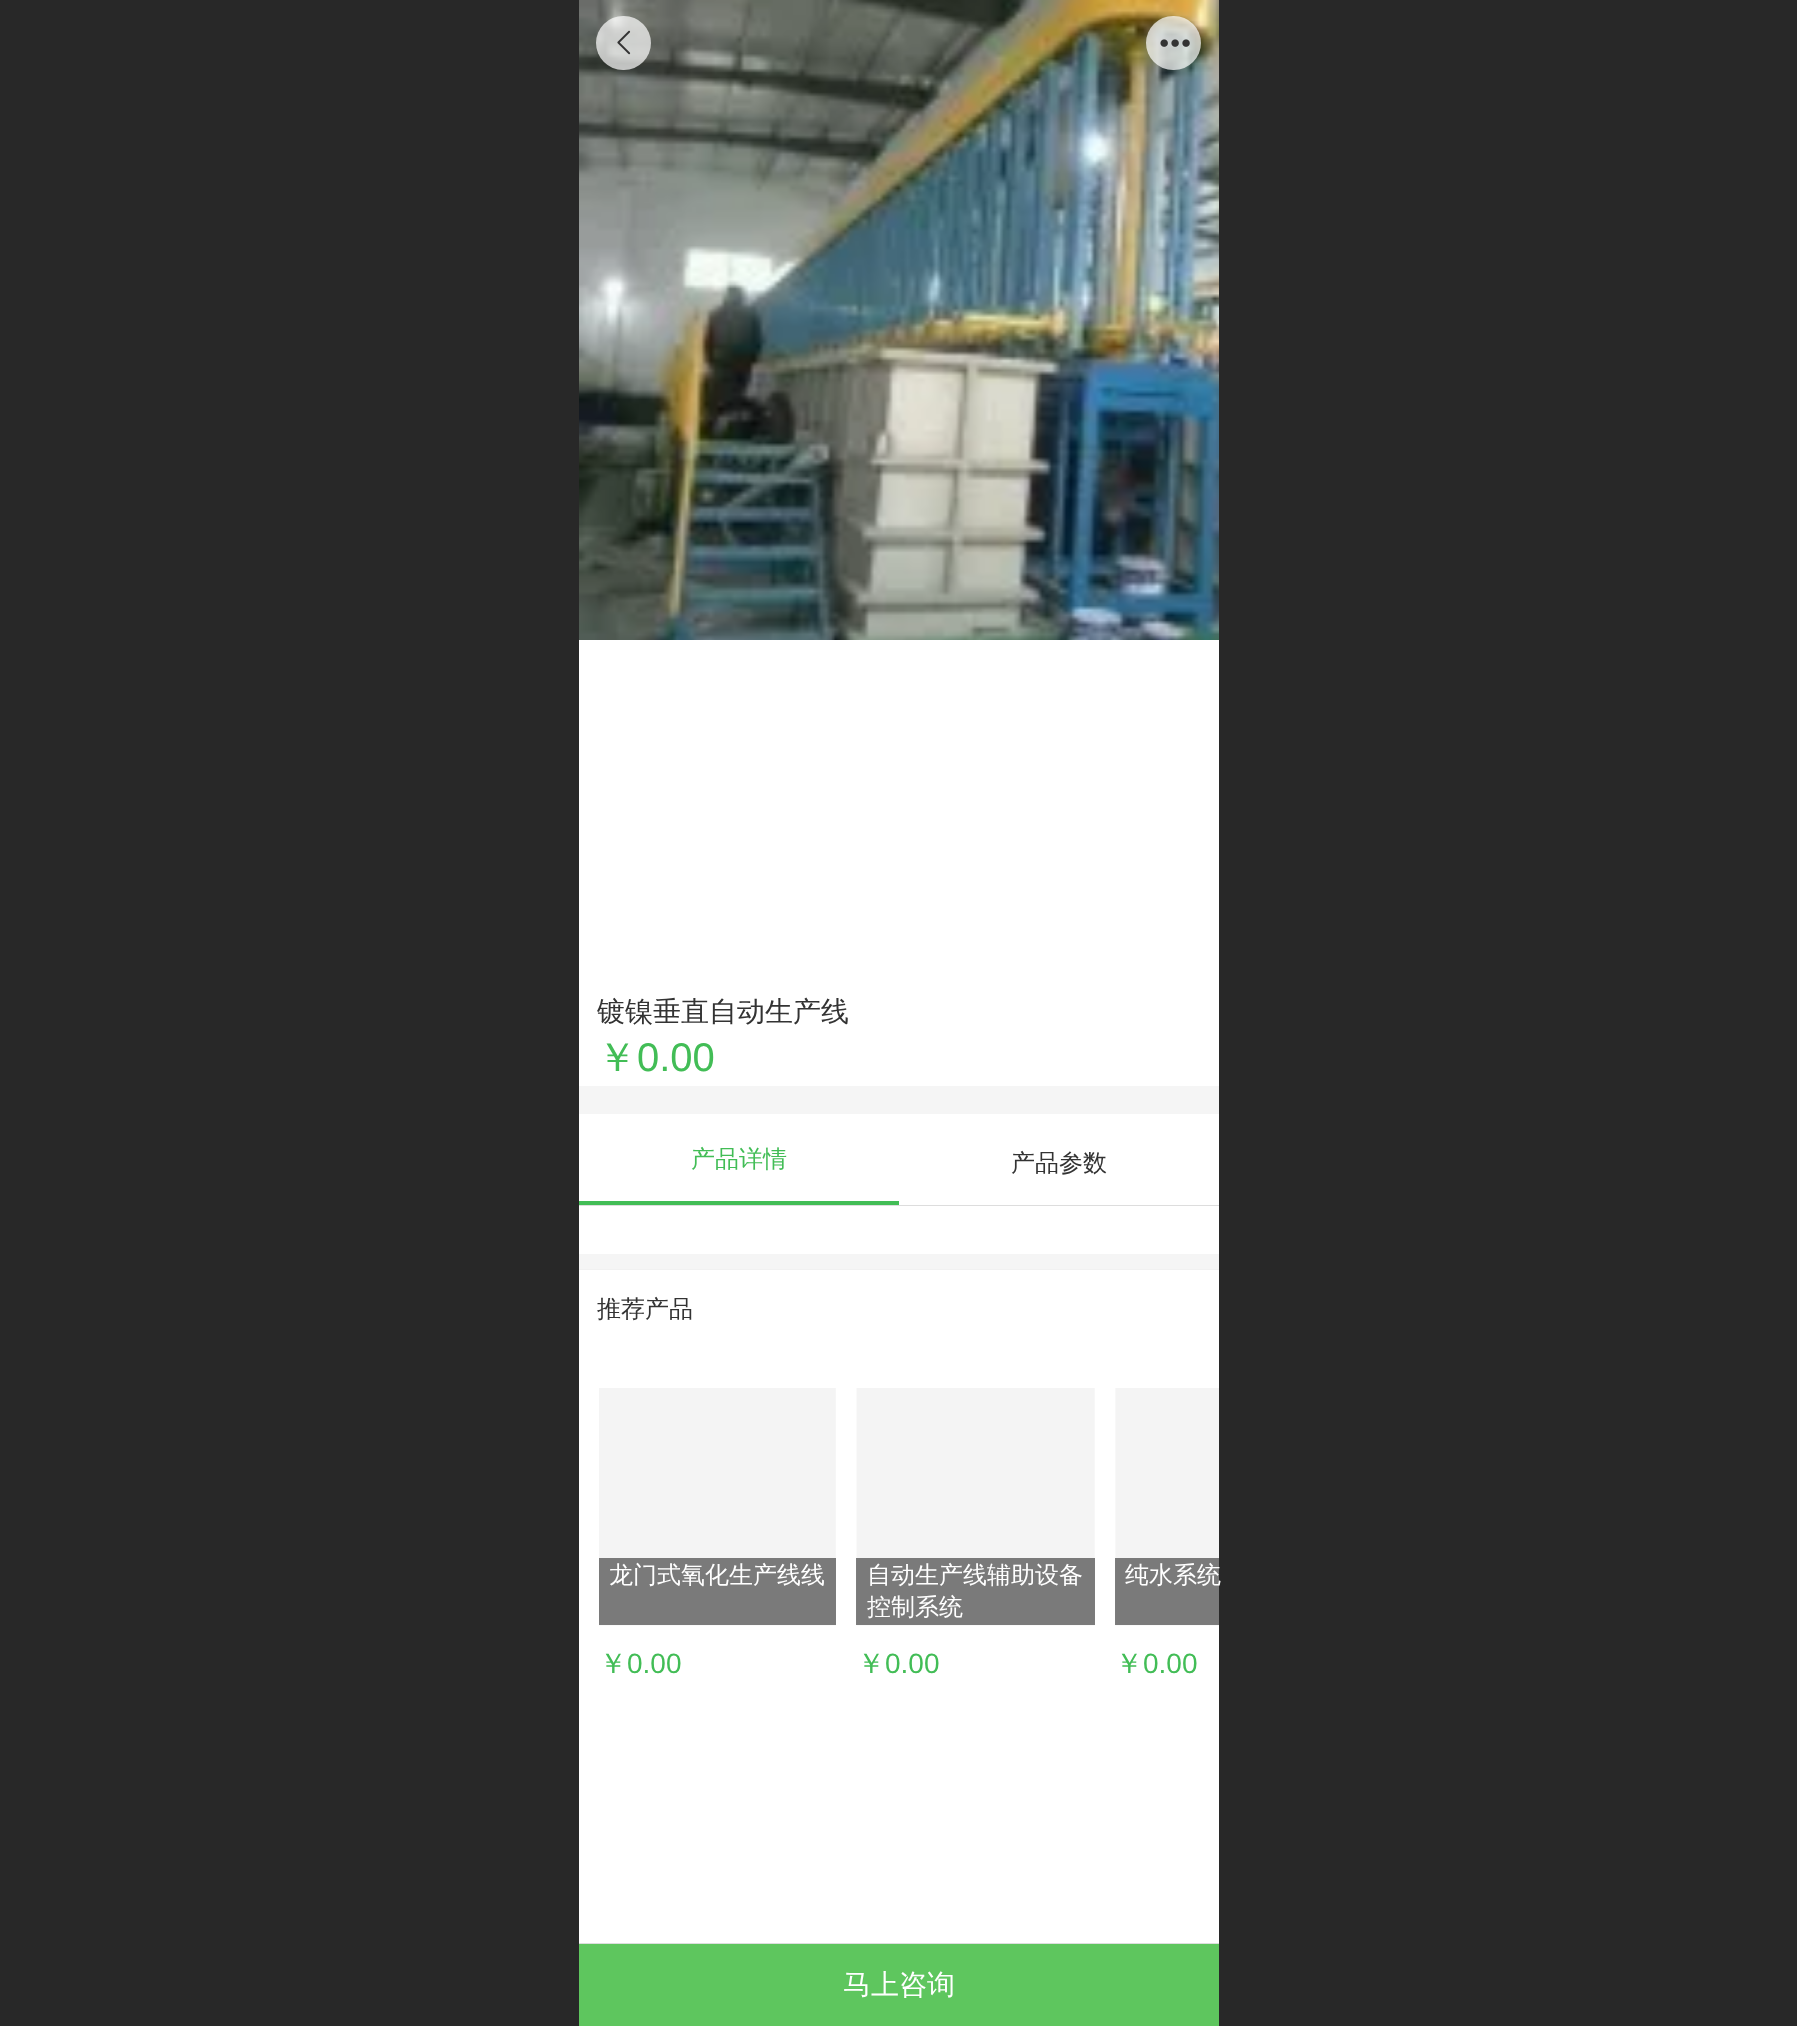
<svg xmlns="http://www.w3.org/2000/svg" width="1797" height="2026" viewBox="0 0 1797 2026">
  <rect width="100%" height="100%" fill="#fff"/>
  <path d="M0 0h579v2026H0z" fill="#282828"/>
  <image x="579" y="0" width="640" height="640" href="img/3.png"/>
  <rect x="596" y="16" width="55" height="54" rx="27" fill="#ffffffb3"/>
  <image x="617" y="30" width="14" height="25" href="img/1.png"/>
  <rect x="1146" y="16" width="55" height="54" rx="27" fill="#ffffffb3"/>
  <image x="1160" y="39" width="30" height="8" href="img/2.png"/>
  <path d="M579 1086h640v28H579z" fill="#f5f5f5"/>
  <path d="M579 1205h640v1H579z" fill="#ddd"/>
  <path d="M579 1201h320v4H579z" fill="#42bd56"/>
  <path d="M579 1254h640v15H579z" fill="#f5f5f5"/>
  <path d="M579 1269h640v1H579z" fill="#f1f1f1"/>
  <image x="599" y="1388" width="237" height="238" href="img/4.png"/>
  <path d="M599 1558h237v67H599z" fill="#00000080"/>
  <image x="856" y="1388" width="239" height="238" href="img/5.png"/>
  <path d="M856 1558h239v67H856z" fill="#00000080"/>
  <image x="1115" y="1388" width="104" height="238" href="img/6.png"/>
  <path d="M1115 1558h104v67H1115z" fill="#00000080"/>
  <path d="M579 1943h640v1H579z" fill="#ddd"/>
  <path d="M579 1944h640v82H579z" fill="#5ec65e"/>
  <path d="M1219 0h578v2026H1219z" fill="#282828"/>
  <text x="597" y="1021" font-family="WenQuanYi Zen Hei" font-size="28" font-weight="500" fill="#333">镀镍垂直自动生产线</text>
  <text x="597" y="1071" font-family="WenQuanYi Zen Hei" font-size="40" font-weight="500" fill="#42bd56">￥</text>
  <text x="637" y="1071" font-family="Liberation Sans" font-size="40" fill="#42bd56">0.00</text>
  <text x="691" y="1167" font-family="WenQuanYi Zen Hei" font-size="24" font-weight="500" fill="#42bd56">产品详情</text>
  <g font-family="WenQuanYi Zen Hei" font-size="24" font-weight="500" fill="#333">
    <text x="1011" y="1171">产品参数</text>
    <text x="597" y="1317">推荐产品</text>
  </g>
  <text x="609" y="1583" font-family="WenQuanYi Zen Hei" font-size="24" font-weight="500" fill="#fff">龙门式氧化生产线线</text>
  <text x="599" y="1673" font-family="WenQuanYi Zen Hei" font-size="28" font-weight="500" fill="#42bd56">￥</text>
  <text x="627" y="1673" font-family="Liberation Sans" font-size="28" fill="#42bd56">0.00</text>
  <g font-family="WenQuanYi Zen Hei" font-size="24" font-weight="500" fill="#fff">
    <text x="867" y="1583">自动生产线辅助设备</text>
    <text x="867" y="1615">控制系统</text>
  </g>
  <text x="857" y="1673" font-family="WenQuanYi Zen Hei" font-size="28" font-weight="500" fill="#42bd56">￥</text>
  <text x="885" y="1673" font-family="Liberation Sans" font-size="28" fill="#42bd56">0.00</text>
  <text x="1125" y="1583" font-family="WenQuanYi Zen Hei" font-size="24" font-weight="500" fill="#fff">纯水系统</text>
  <text x="1115" y="1673" font-family="WenQuanYi Zen Hei" font-size="28" font-weight="500" fill="#42bd56">￥</text>
  <text x="1143" y="1673" font-family="Liberation Sans" font-size="28" fill="#42bd56">0.00</text>
  <text x="843" y="1994" font-family="WenQuanYi Zen Hei" font-size="28" font-weight="500" fill="#fff">马上咨询</text>
</svg>
